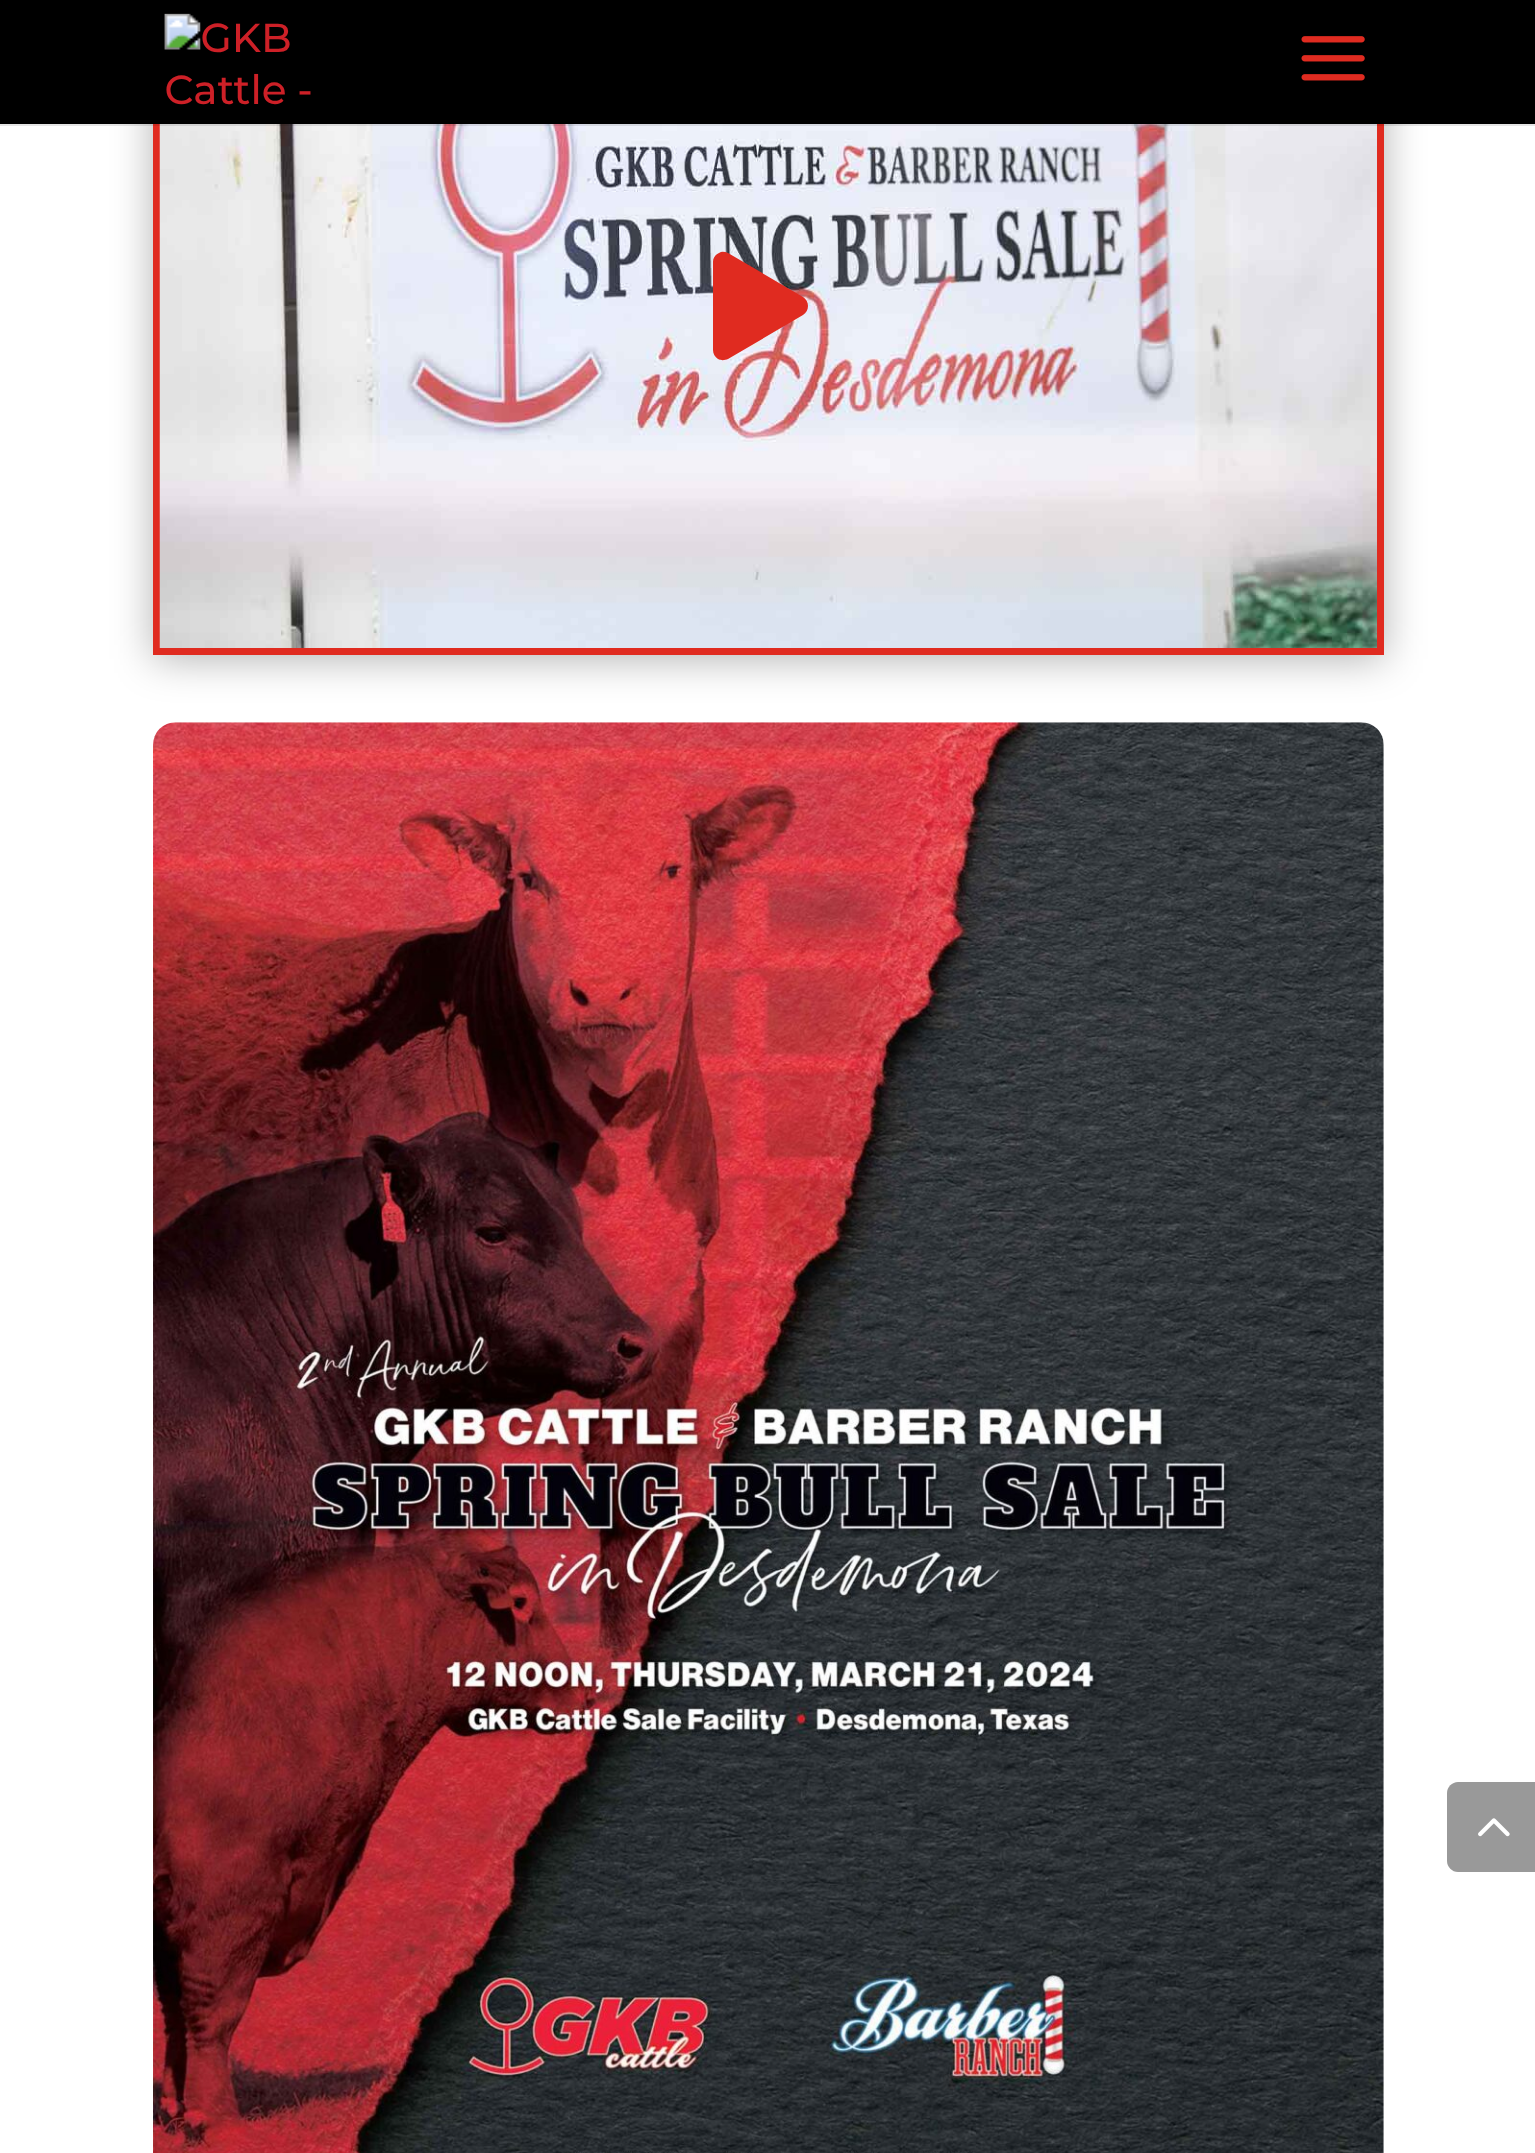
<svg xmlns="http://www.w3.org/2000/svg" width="1535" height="2153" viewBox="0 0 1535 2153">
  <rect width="100%" height="100%" fill="#fff"/>
  <path d="M153 -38h1231v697H153z" fill="#0000004d" filter="blur(20px)"/>
  <path d="M156.5 -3.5h1224v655H156.5z" fill="none" stroke="#e02b20" stroke-width="7"/>
  <image x="159" y="124" width="1218" height="524" href="img/1.png"/>
  <path d="M803 297C806 299 808 302 808 306C808 310 806 313 803 315L728 359C725 360 722 361 718 359C715 357 713 354 713 350V262C713 258 715 255 719 253C722 251 725 252 728 253Z" fill="#e02b20"/>
  <image x="153" y="722" width="1231" height="1431" href="img/2.png"/>
  <path d="M0 124V126H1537V2V124Z" fill="#0000001a"/>
  <path d="M0 0h1535v124H0z" fill="#000"/>
  <image x="164" y="13" width="147" height="92" href="img/3.png"/>
  <image x="1301" y="36" width="64" height="45" href="img/4.png"/>
  <path d="M1458 1782H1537V1872H1458C1452 1872 1447 1867 1447 1861V1793C1447 1787 1452 1782 1458 1782Z" fill="#999"/>
  <image x="1478" y="1818" width="32" height="19" href="img/5.png"/>
</svg>
